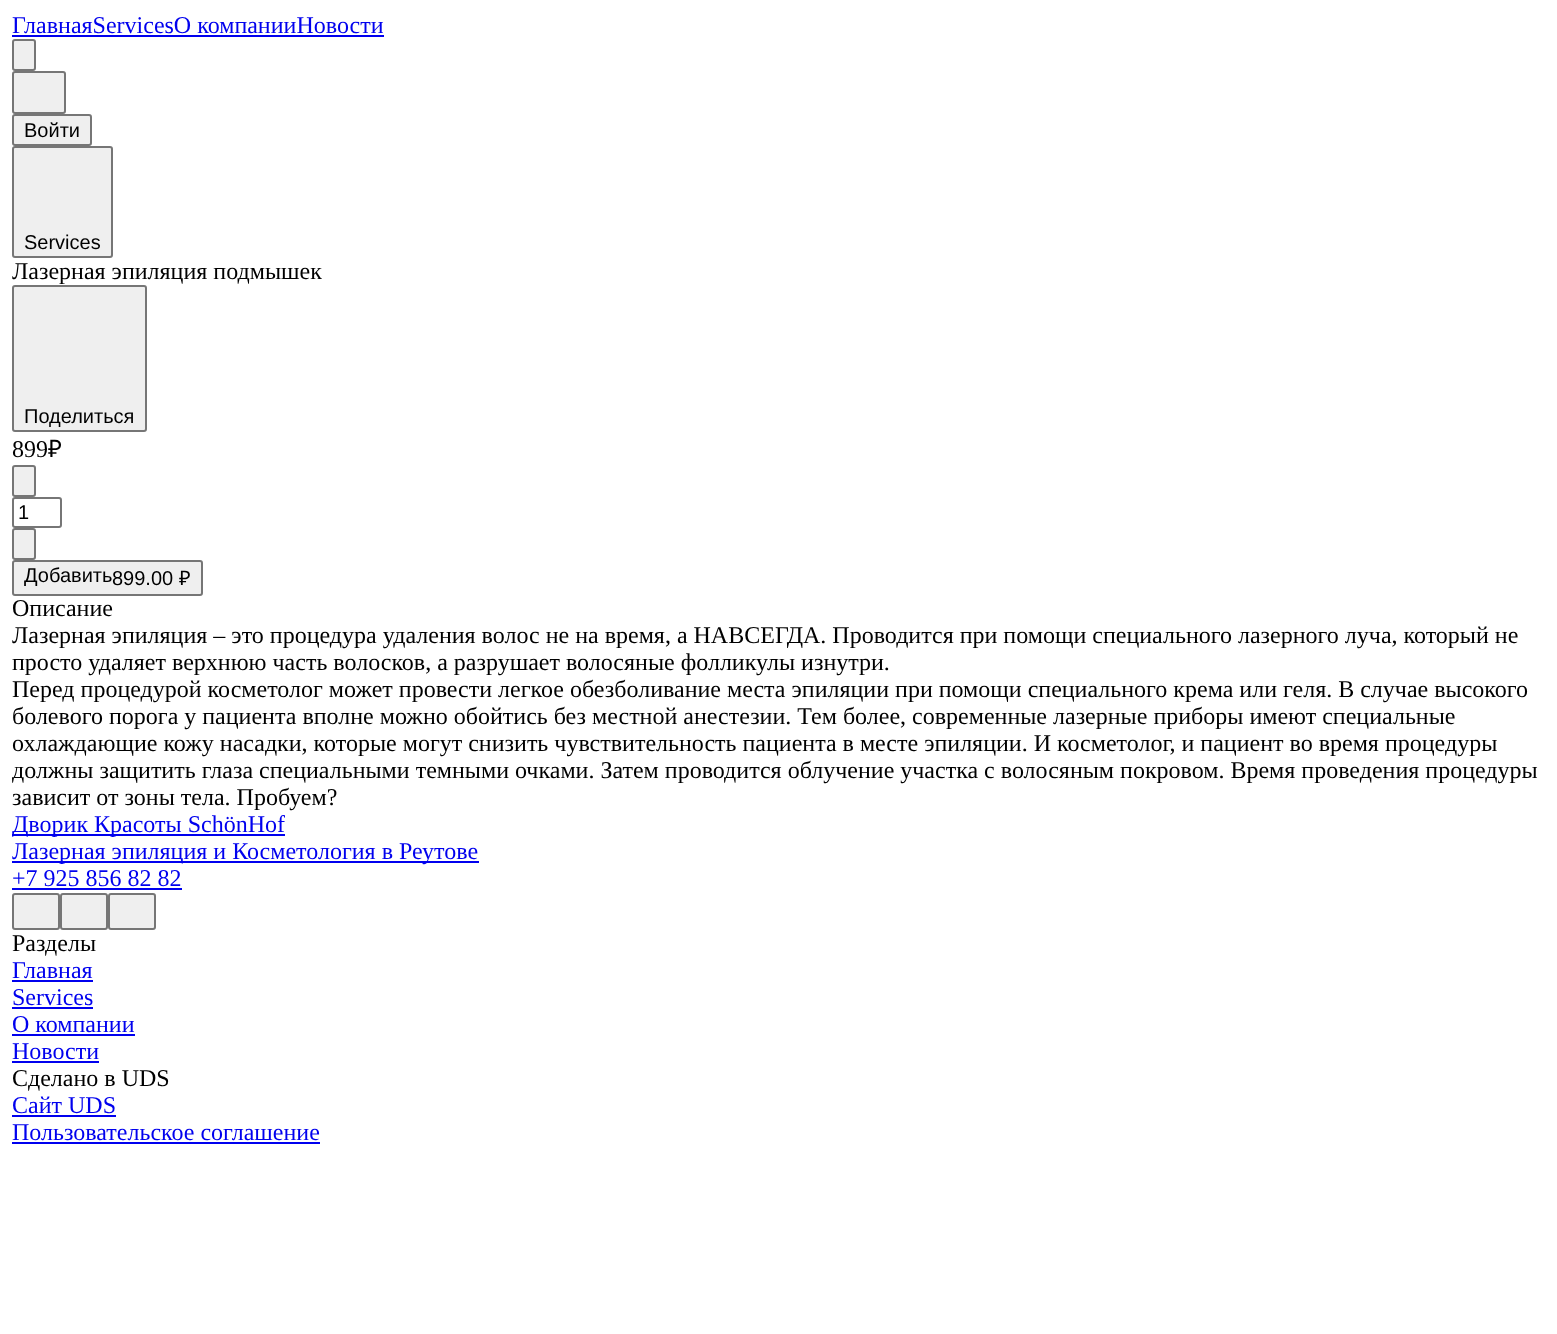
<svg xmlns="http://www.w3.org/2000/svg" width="1557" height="1334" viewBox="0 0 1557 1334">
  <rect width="100%" height="100%" fill="#fff"/>
  <path d="M12 35h372v2H12z" fill="#00e"/>
  <rect x="13" y="40" width="22" height="30" rx="2" fill="#efefef" stroke="#767676" stroke-width="2"/>
  <rect x="13" y="72" width="52" height="41" rx="2" fill="#efefef" stroke="#767676" stroke-width="2"/>
  <rect x="13" y="115" width="78" height="30" rx="2" fill="#efefef" stroke="#767676" stroke-width="2"/>
  <rect x="13" y="147" width="99" height="110" rx="2" fill="#efefef" stroke="#767676" stroke-width="2"/>
  <rect x="13" y="286" width="133" height="145" rx="2" fill="#efefef" stroke="#767676" stroke-width="2"/>
  <rect x="13" y="466" width="22" height="30" rx="2" fill="#efefef" stroke="#767676" stroke-width="2"/>
  <rect x="13" y="498" width="48" height="29" rx="2" fill="none" stroke="#767676" stroke-width="2"/>
  <rect x="13" y="529" width="22" height="30" rx="2" fill="#efefef" stroke="#767676" stroke-width="2"/>
  <rect x="13" y="561" width="189" height="34" rx="2" fill="#efefef" stroke="#767676" stroke-width="2"/>
  <path d="M12 834h273v2H12z" fill="#00e"/>
  <path d="M12 861h467v2H12z" fill="#00e"/>
  <path d="M12 888h170v2H12z" fill="#00e"/>
  <rect x="13" y="894" width="46" height="35" rx="2" fill="#efefef" stroke="#767676" stroke-width="2"/>
  <rect x="61" y="894" width="46" height="35" rx="2" fill="#efefef" stroke="#767676" stroke-width="2"/>
  <rect x="109" y="894" width="46" height="35" rx="2" fill="#efefef" stroke="#767676" stroke-width="2"/>
  <path d="M12 980h81v2H12z" fill="#00e"/>
  <path d="M12 1007h81v2H12z" fill="#00e"/>
  <path d="M12 1034h123v2H12z" fill="#00e"/>
  <path d="M12 1061h87v2H12z" fill="#00e"/>
  <path d="M12 1115h104v2H12z" fill="#00e"/>
  <path d="M12 1142h308v2H12z" fill="#00e"/>
  <text x="12" y="33" font-family="Liberation Serif" font-size="24" fill="#00e">ГлавнаяServicesО компанииНовости</text>
  <g font-family="Liberation Sans" font-size="20" fill="#000">
    <text x="24" y="137">Войти</text>
    <text x="24" y="249">Services</text>
  </g>
  <text x="12" y="279" font-family="Liberation Serif" font-size="24" fill="#000">Лазерная эпиляция подмышек</text>
  <text x="24" y="423" font-family="Liberation Sans" font-size="20" fill="#000">Поделиться</text>
  <text x="12" y="457" font-family="Liberation Serif" font-size="24" fill="#000">899</text>
  <text x="48" y="457" font-family="Noto Sans" font-size="24" fill="#000">₽</text>
  <g font-family="Liberation Sans" font-size="20" fill="#000">
    <text x="18" y="519">1</text>
    <text x="24" y="582">Добавить</text>
    <text x="112" y="585">899.00</text>
  </g>
  <text x="179" y="585" font-family="Noto Sans" font-size="20" fill="#000">₽</text>
  <g font-family="Liberation Serif" font-size="24" fill="#000">
    <text x="12" y="616">Описание</text>
    <text x="12" y="643">Лазерная эпиляция – это процедура удаления волос не на время, а НАВСЕГДА. Проводится при помощи специального лазерного луча, который не</text>
    <text x="12" y="670">просто удаляет верхнюю часть волосков, а разрушает волосяные фолликулы изнутри.</text>
    <text x="12" y="697">Перед процедурой косметолог может провести легкое обезболивание места эпиляции при помощи специального крема или геля. В случае высокого</text>
    <text x="12" y="724">болевого порога у пациента вполне можно обойтись без местной анестезии. Тем более, современные лазерные приборы имеют специальные</text>
    <text x="12" y="751">охлаждающие кожу насадки, которые могут снизить чувствительность пациента в месте эпиляции. И косметолог, и пациент во время процедуры</text>
    <text x="12" y="778">должны защитить глаза специальными темными очками. Затем проводится облучение участка с волосяным покровом. Время проведения процедуры</text>
    <text x="12" y="805">зависит от зоны тела. Пробуем?</text>
  </g>
  <g font-family="Liberation Serif" font-size="24" fill="#00e">
    <text x="12" y="832">Дворик Красоты SchönHof</text>
    <text x="12" y="859">Лазерная эпиляция и Косметология в Реутове</text>
    <text x="12" y="886">+7 925 856 82 82</text>
  </g>
  <text x="12" y="951" font-family="Liberation Serif" font-size="24" fill="#000">Разделы</text>
  <g font-family="Liberation Serif" font-size="24" fill="#00e">
    <text x="12" y="978">Главная</text>
    <text x="12" y="1005">Services</text>
    <text x="12" y="1032">О компании</text>
    <text x="12" y="1059">Новости</text>
  </g>
  <text x="12" y="1086" font-family="Liberation Serif" font-size="24" fill="#000">Сделано в UDS</text>
  <g font-family="Liberation Serif" font-size="24" fill="#00e">
    <text x="12" y="1113">Сайт UDS</text>
    <text x="12" y="1140">Пользовательское соглашение</text>
  </g>
</svg>
